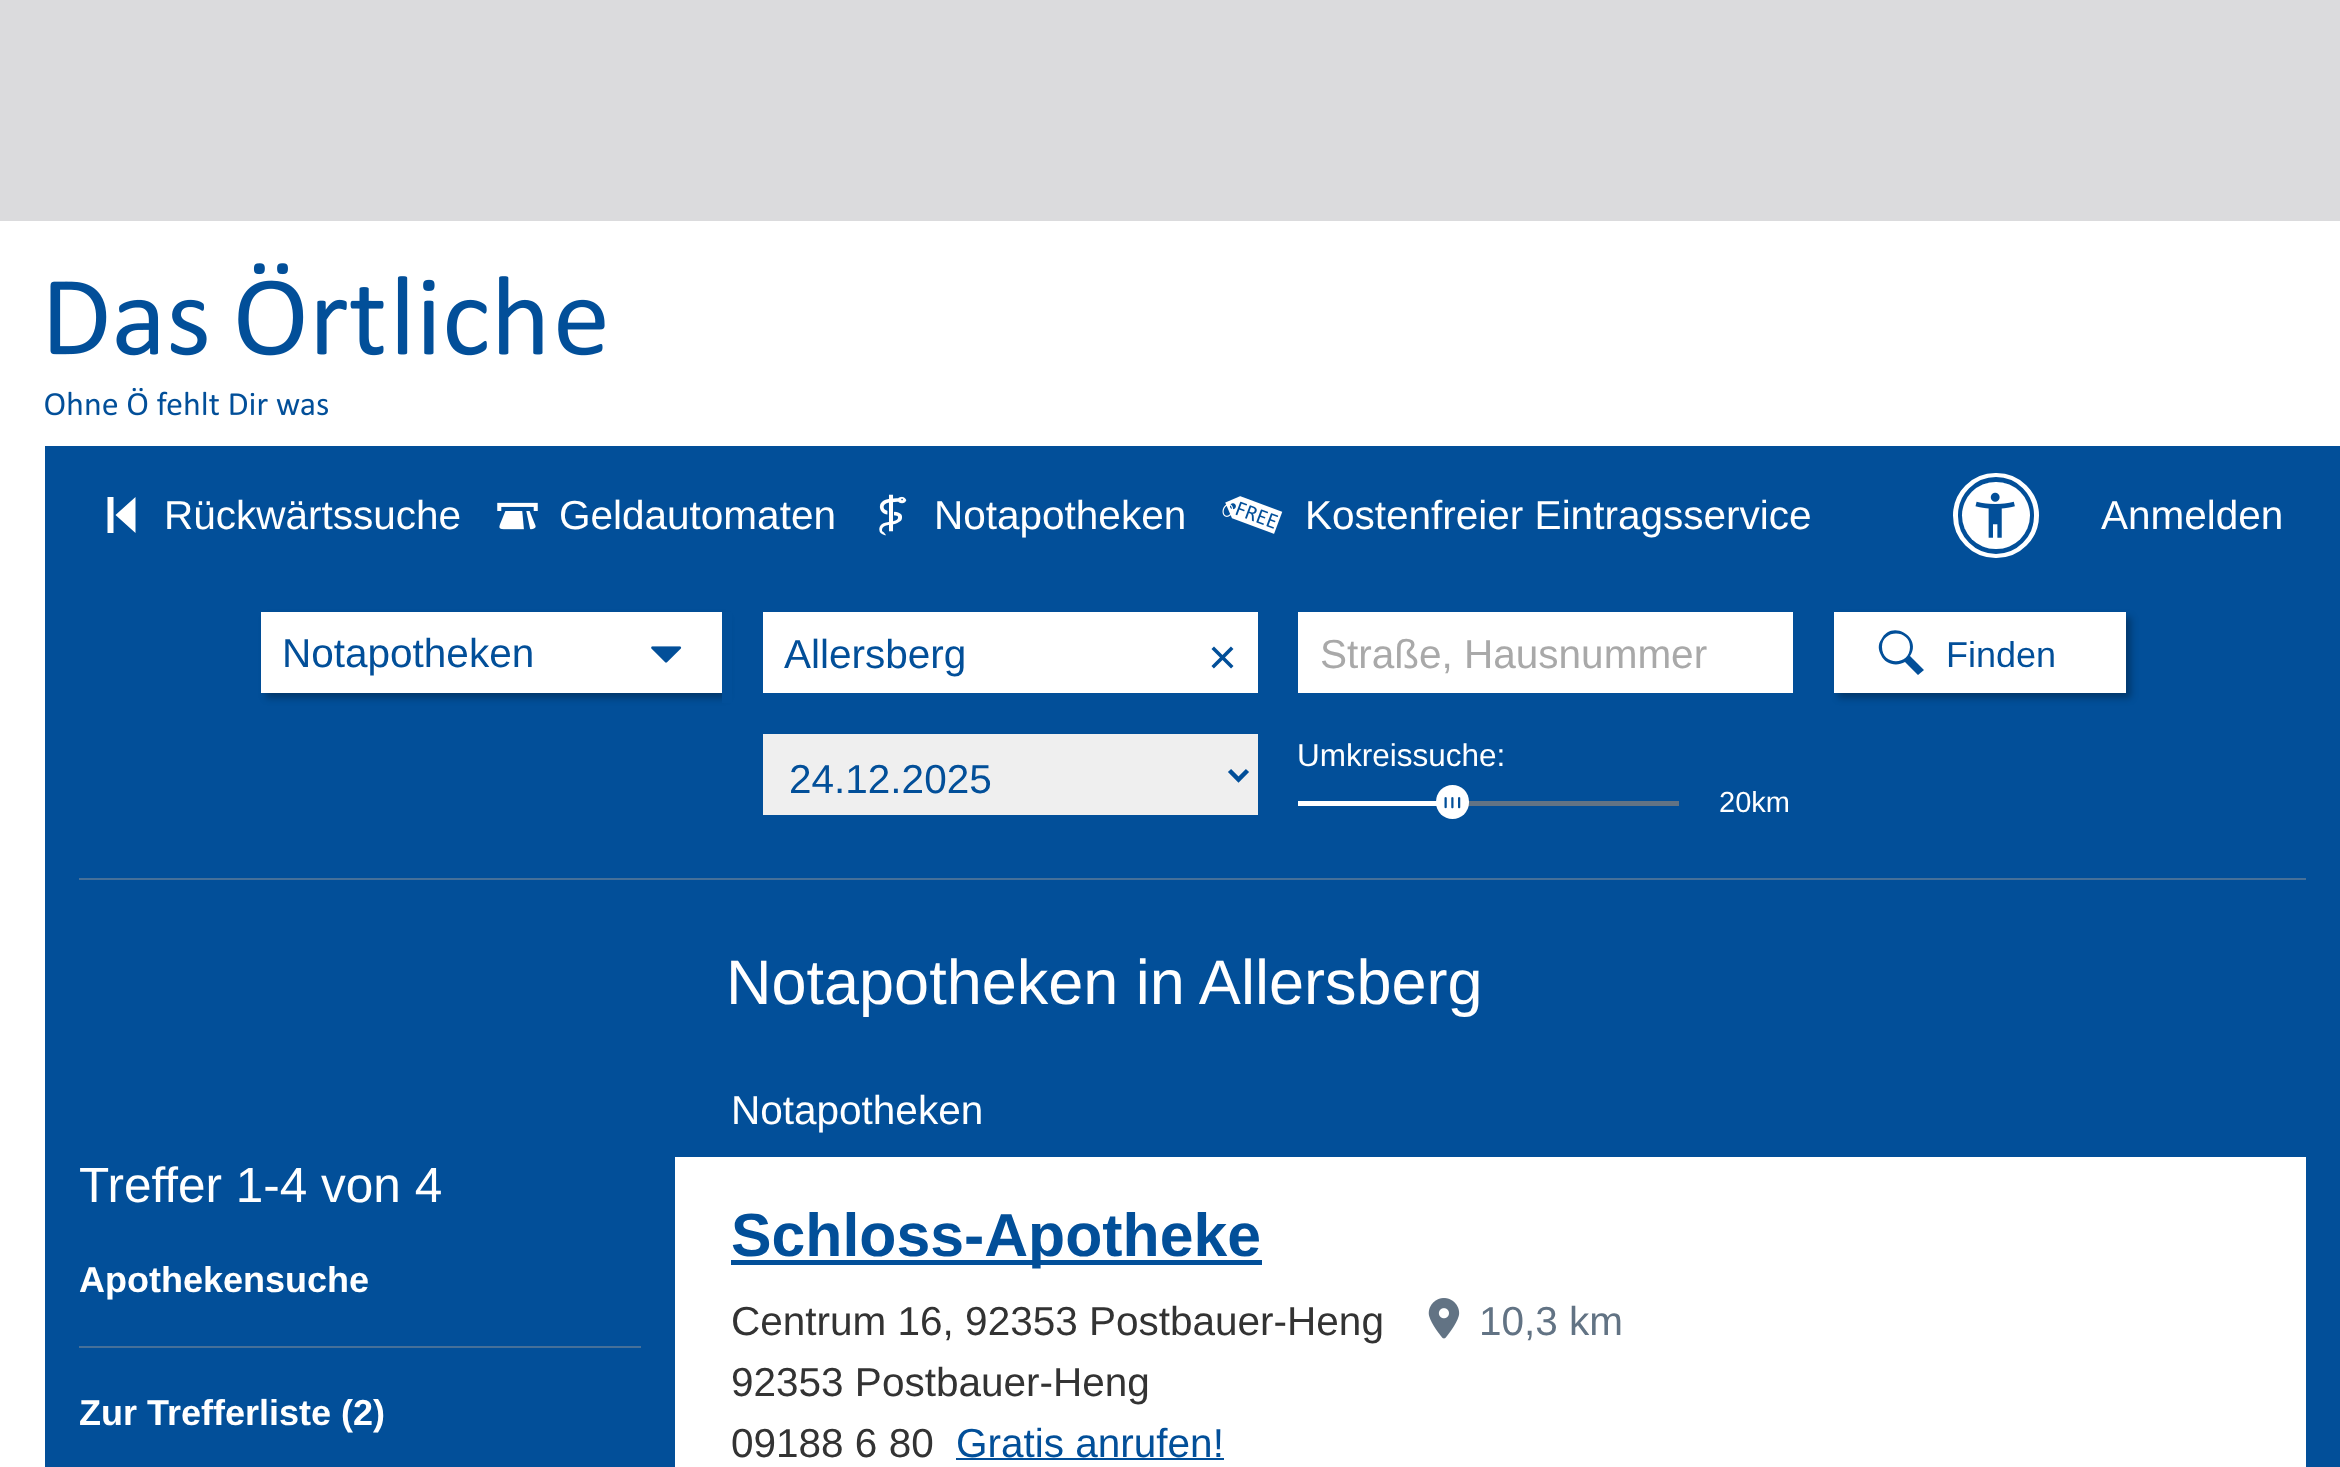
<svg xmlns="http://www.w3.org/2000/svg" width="2340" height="1467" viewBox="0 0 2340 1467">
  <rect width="100%" height="100%" fill="#dbdbdd"/>
  <path d="M0 221h2340v1246H0z" fill="#fff"/>
  <image x="50" y="263" width="555" height="93" href="img/1.png"/>
  <image x="45" y="387" width="283" height="29" href="img/2.png"/>
  <path d="M45 446h2295v1021H45z" fill="#024f99"/>
  <path d="M115.5 515L135.5 533V497ZM107.5 497H113.5V533H107.5Z" fill="#fff"/>
  <image x="497" y="502" width="41" height="28" href="img/3.png"/>
  <image x="879" y="494" width="28" height="42" href="img/4.png"/>
  <image x="1222" y="496" width="61" height="38" href="img/5.png"/>
  <rect x="1957.5" y="477.5" width="77" height="76" rx="38" fill="none" stroke="#fff" stroke-width="9"/>
  <rect x="1960.5" y="479.5" width="71" height="72" rx="35.5" fill="none" stroke="#024f99" stroke-width="5"/>
  <rect x="1962" y="482" width="68" height="67" rx="33.5" fill="#fff"/>
  <image x="1975" y="492" width="40" height="46" href="img/6.png"/>
  <path d="M266 617h461v81H266z" fill="#0000004a" filter="blur(3.5px)"/>
  <path d="M261 612h461v81H261z" fill="#fff"/>
  <image x="651" y="646" width="31" height="17" href="img/7.png"/>
  <path d="M722 612h10v91H722z" fill="#024f99"/>
  <path d="M763 612h495v81H763z" fill="#fff"/>
  <path d="M1298 612h495v81H1298z" fill="#fff"/>
  <path d="M763 734h495v81H763z" fill="#efefef"/>
  <path d="M1229.5 770.5L1238.5 779.5L1247.5 770.5" fill="none" stroke="#024f99" stroke-width="4.5"/>
  <path d="M1468 801h211v5H1468z" fill="#627384"/>
  <path d="M1298 801h139v5H1298z" fill="#fff"/>
  <rect x="1436" y="785" width="33" height="34" rx="16.5" fill="#fff"/>
  <image x="1444" y="797" width="17" height="12" href="img/8.png"/>
  <path d="M1838 617h293v81H1838z" fill="#0000004a" filter="blur(3.5px)"/>
  <path d="M1834 612h292v81H1834z" fill="#fff"/>
  <path d="M1924 670L1910 656C1923 637 1891 618 1881 640C1878 644 1878 650 1881 655C1885 664 1896 667 1905 662L1918 675ZM1882 647C1882 629 1910 629 1910 647C1910 666 1882 666 1882 647Z" fill="#024f99"/>
  <path d="M79 878h2227v2H79z" fill="#467099"/>
  <path d="M79 1346h562v2H79z" fill="#467099"/>
  <path d="M675 1157h1631v310H675z" fill="#fff"/>
  <path d="M731 1260h531v5H731z" fill="#024f99"/>
  <image x="1428" y="1298" width="32" height="41" href="img/9.png"/>
  <path d="M956 1458h268v2H956z" fill="#024f99"/>
  <g font-family="Liberation Sans" font-size="40.5" fill="#fff">
    <text x="164" y="529">Rückwärtssuche</text>
    <text x="559" y="529">Geldautomaten</text>
    <text x="934" y="529">Notapotheken</text>
    <text x="1305" y="529">Kostenfreier Eintragsservice</text>
    <text x="2101" y="529">Anmelden</text>
  </g>
  <g font-family="Liberation Sans" font-size="40.5" fill="#024f99">
    <text x="282" y="667">Notapotheken</text>
    <text x="784" y="668">Allersberg</text>
  </g>
  <text x="1208" y="674" font-family="Liberation Sans" font-size="49.5" fill="#024f99">×</text>
  <text x="1320" y="668" font-family="Liberation Sans" font-size="40.5" fill="#a9a9a9">Straße, Hausnummer</text>
  <text x="789" y="793" font-family="Liberation Sans" font-size="40.5" fill="#024f99">24.12.2025</text>
  <text x="1297" y="766" font-family="Liberation Sans" font-size="31.5" fill="#fff">Umkreissuche:</text>
  <text x="1719" y="812" font-family="Liberation Sans" font-size="29" fill="#fff">20km</text>
  <text x="1946" y="667" font-family="Liberation Sans" font-size="36" fill="#024f99">Finden</text>
  <text x="726" y="1004" font-family="Liberation Sans" font-size="63" fill="#fff">Notapotheken in Allersberg</text>
  <text x="79" y="1202" font-family="Liberation Sans" font-size="49.5" fill="#fff">Treffer 1-4 von 4</text>
  <g font-family="Liberation Sans" font-size="36" font-weight="bold" fill="#fff">
    <text x="79" y="1292">Apothekensuche</text>
    <text x="79" y="1425">Zur Trefferliste (2)</text>
  </g>
  <text x="731" y="1124" font-family="Liberation Sans" font-size="40.5" fill="#fff">Notapotheken</text>
  <text x="731" y="1256" font-family="Liberation Sans" font-size="60.75" font-weight="bold" fill="#024f99">Schloss-Apotheke</text>
  <text x="731" y="1335" font-family="Liberation Sans" font-size="40.5" fill="#333">Centrum 16, 92353 Postbauer-Heng</text>
  <text x="1479" y="1335" font-family="Liberation Sans" font-size="40.5" fill="#627384">10,3 km</text>
  <g font-family="Liberation Sans" font-size="40.5" fill="#333">
    <text x="731" y="1396">92353 Postbauer-Heng</text>
    <text x="731" y="1457">09188 6 80</text>
  </g>
  <text x="956" y="1457" font-family="Liberation Sans" font-size="40.5" fill="#024f99">Gratis anrufen!</text>
</svg>
